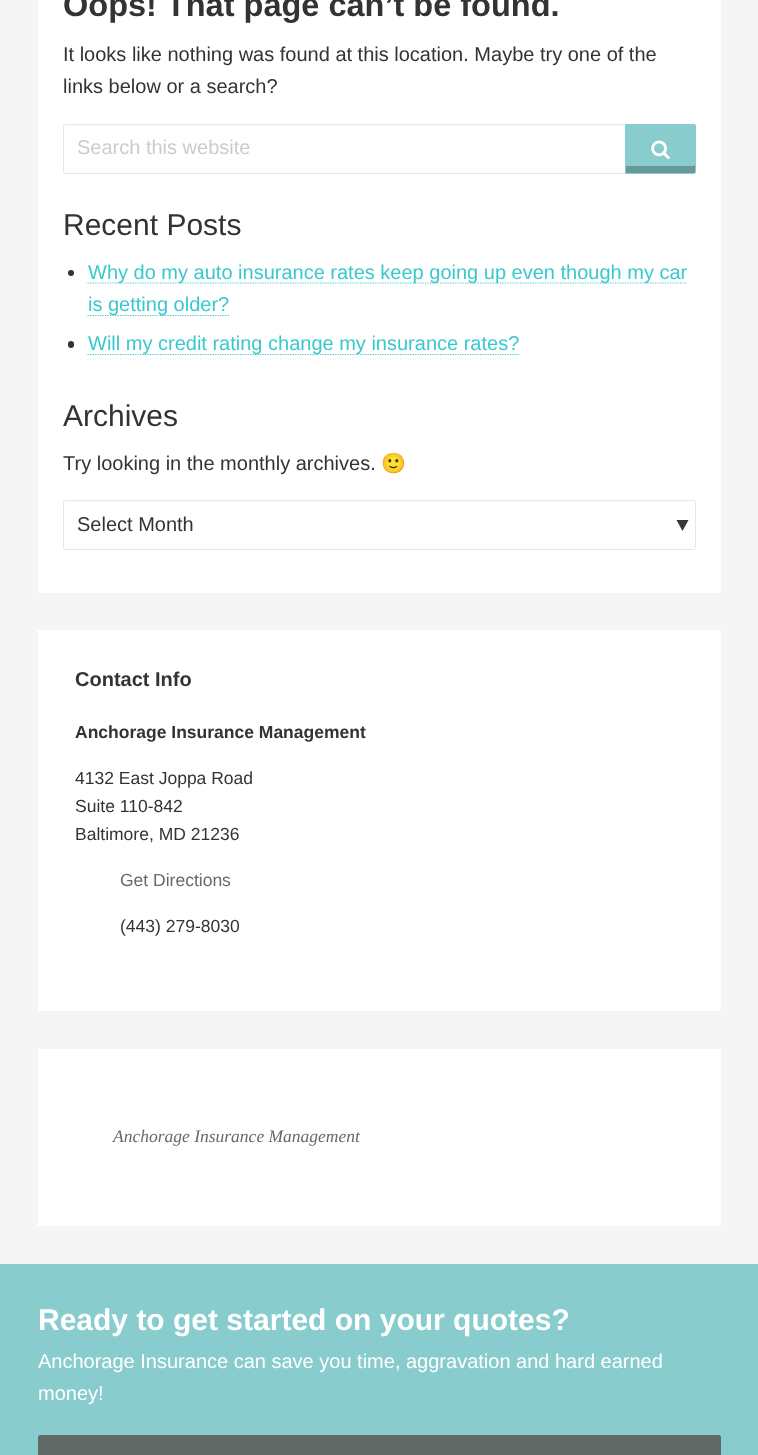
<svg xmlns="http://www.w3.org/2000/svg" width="758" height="1455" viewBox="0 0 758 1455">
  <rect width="100%" height="100%" fill="#f5f5f5"/>
  <path d="M38 0h683v593H38z" fill="#fff"/>
  <rect x="63.5" y="124.5" width="632" height="49" rx="2" fill="none" stroke="#e6e6e6"/>
  <path d="M625 124H693.5C695 124 696 125 696 126.5V171.5C696 173 695 174 693.5 174H625Z" fill="#88cccd"/>
  <path d="M626 166V173H694C695 173 695 173 695 172V165L694 166Z" fill="#689899"/>
  <path d="M625.5 124.5H693.5C694.5 124.5 695.5 125.5 695.5 126.5V171.5C695.5 172.5 694.5 173.5 693.5 173.5H625.5Z" fill="none" stroke="#88cccd"/>
  <image x="651" y="140" width="19" height="20" href="img/1.png"/>
  <circle cx="71" cy="273" r="3" fill="#333"/>
  <path d="M87.5 283H687.5" fill="none" stroke="#39c9cc" stroke-width="1.2" stroke-dasharray="1.25 1.25"/>
  <path d="M87.5 315.5H229" fill="none" stroke="#39c9cc" stroke-width="1.2" stroke-dasharray="1.25 1.25"/>
  <rect x="68" y="341" width="6" height="7" rx="3" fill="#333"/>
  <path d="M87.5 354.5H519" fill="none" stroke="#39c9cc" stroke-width="1.2" stroke-dasharray="1.25 1.25"/>
  <path d="M682.5 531L676.5 520H688.5Z" fill="#36383b"/>
  <rect x="63.5" y="500.5" width="632" height="49" rx="2" fill="none" stroke="#e6e6e6"/>
  <path d="M38 630h683v381H38z" fill="#fff"/>
  <path d="M38 1049h683v177H38z" fill="#fff"/>
  <path d="M0 1264h758v191H0z" fill="#88cccd"/>
  <rect x="38" y="1435" width="683" height="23" rx="2.5" fill="#606966"/>
  <text x="63" y="16" font-family="Liberation Sans" font-size="32.5" font-weight="bold" fill="#333">Oops! That page can’t be found.</text>
  <g font-family="Liberation Sans" font-size="20" fill="#333">
    <text x="63" y="61">It looks like nothing was found at this location. Maybe try one of the</text>
    <text x="63" y="93">links below or a search?</text>
  </g>
  <text x="77" y="154" font-family="Liberation Sans" font-size="20" fill="#cdcccc">Search this website</text>
  <text x="63" y="235" font-family="Liberation Sans" font-size="30" fill="#333">Recent Posts</text>
  <g font-family="Liberation Sans" font-size="20" fill="#39c9cc">
    <text x="88" y="279">Why do my auto insurance rates keep going up even though my car</text>
    <text x="88" y="311">is getting older?</text>
    <text x="88" y="350">Will my credit rating change my insurance rates?</text>
  </g>
  <text x="63" y="426" font-family="Liberation Sans" font-size="30" fill="#333">Archives</text>
  <text x="63" y="470" font-family="Liberation Sans" font-size="20" fill="#333">Try looking in the monthly archives.</text>
  <text x="381" y="470" font-family="Noto Color Emoji" font-size="20" fill="#333">🙂</text>
  <text x="77" y="531" font-family="Liberation Sans" font-size="20" fill="#333">Select Month</text>
  <text x="75" y="686" font-family="Liberation Sans" font-size="20" font-weight="bold" fill="#333">Contact Info</text>
  <text x="75" y="738" font-family="Liberation Sans" font-size="17.5" font-weight="bold" fill="#333">Anchorage Insurance Management</text>
  <g font-family="Liberation Sans" font-size="17.5" fill="#333">
    <text x="75" y="784">4132 East Joppa Road</text>
    <text x="75" y="812">Suite 110-842</text>
    <text x="75" y="840">Baltimore, MD 21236</text>
  </g>
  <text x="120" y="886" font-family="Liberation Sans" font-size="17.5" fill="#676869">Get Directions</text>
  <text x="120" y="932" font-family="Liberation Sans" font-size="17.5" fill="#333">(443) 279-8030</text>
  <text x="113" y="1142" font-family="Liberation Serif" font-size="17.5" font-style="italic" fill="#676869">Anchorage Insurance Management</text>
  <text x="38" y="1330" font-family="Liberation Sans" font-size="30" font-weight="bold" fill="#fff">Ready to get started on your quotes?</text>
  <g font-family="Liberation Sans" font-size="20" fill="#fff">
    <text x="38" y="1368">Anchorage Insurance can save you time, aggravation and hard earned</text>
    <text x="38" y="1400">money!</text>
  </g>
</svg>
